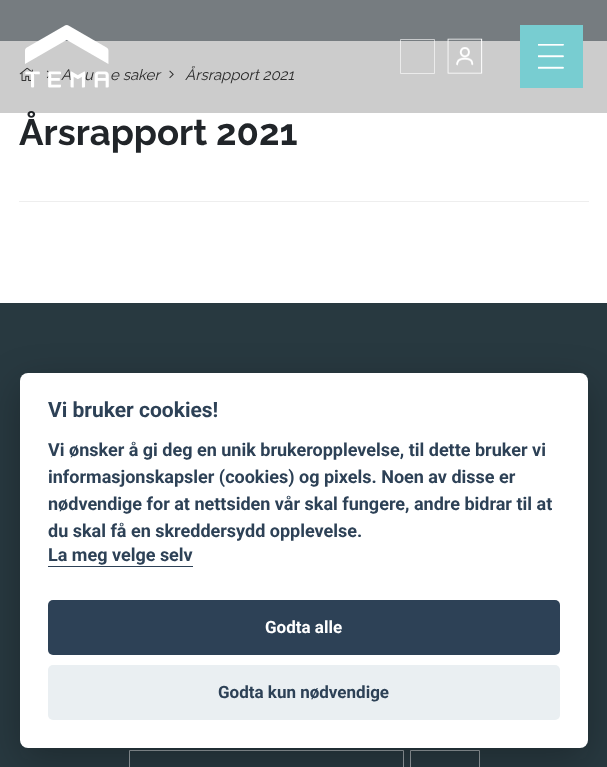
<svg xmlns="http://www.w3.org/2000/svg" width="607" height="767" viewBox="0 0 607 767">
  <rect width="100%" height="100%" fill="#fff"/>
  <path d="M0 0h607v41H0z" fill="#949ca0"/>
  <image x="19" y="67" width="16" height="14" href="img/4.png"/>
  <image x="46" y="70" width="6" height="9" href="img/5.png"/>
  <image x="169" y="70" width="5" height="9" href="img/6.png"/>
  <path d="M19 201h570v1H19z" fill="#eee"/>
  <path d="M0 303h607v464H0z" fill="#283940"/>
  <path d="M129.5 750.5h274v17H129.5z" fill="none" stroke="#949ca0"/>
  <path d="M410.5 750.5h69v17H410.5z" fill="none" stroke="#949ca0"/>
  <rect x="20" y="385" width="568" height="375" rx="8" fill="#02020347" filter="blur(19px)"/>
  <rect x="20" y="373" width="568" height="375" rx="8" fill="#fff"/>
  <path d="M48 566h145v1H48z" fill="#2d4156"/>
  <rect x="48" y="600" width="512" height="55" rx="5" fill="#2d4156"/>
  <rect x="48" y="665" width="512" height="55" rx="5" fill="#eaeff2"/>
  <g font-family="Raleway" font-size="15" font-style="italic" fill="#363636">
    <text x="61" y="80">A</text>
    <text x="84" y="80">u</text>
    <text x="110" y="80">e saker</text>
    <text x="185" y="80">Årsrapport 2021</text>
  </g>
  <text x="19" y="145" font-family="Raleway" font-size="36.5" font-weight="bold" fill="#212529">Årsrapport 2021</text>
  <path d="M0 0h607v113H0z" fill="#00000033"/>
  <path d="M520 25h63v63H520z" fill="#78cdd1"/>
  <image x="538" y="44" width="26" height="25" href="img/2.png"/>
  <image x="447" y="38" width="36" height="36" href="img/1.png"/>
  <path d="M400.5 39.5h34v34H400.5z" fill="none" stroke="#ffffff99"/>
  <image x="25" y="25" width="84" height="63" href="img/3.png"/>
  <text x="48" y="417" font-family="Roboto" font-size="21" font-weight="bold" fill="#2d4156">Vi bruker cookies!</text>
  <g font-family="Roboto" font-size="18" font-weight="bold" fill="#2d4156">
    <text x="48" y="456">Vi ønsker å gi deg en unik brukeropplevelse, til dette bruker vi</text>
    <text x="48" y="483">informasjonskapsler (cookies) og pixels. Noen av disse er</text>
    <text x="48" y="510">nødvendige for at nettsiden vår skal fungere, andre bidrar til at</text>
    <text x="48" y="537">du skal få en skreddersydd opplevelse.</text>
    <text x="48" y="561">La meg velge selv</text>
  </g>
  <text x="265" y="633" font-family="Roboto" font-size="17" font-weight="bold" fill="#fff">Godta alle</text>
  <text x="218" y="698" font-family="Roboto" font-size="17" font-weight="bold" fill="#2d4156">Godta kun nødvendige</text>
</svg>
